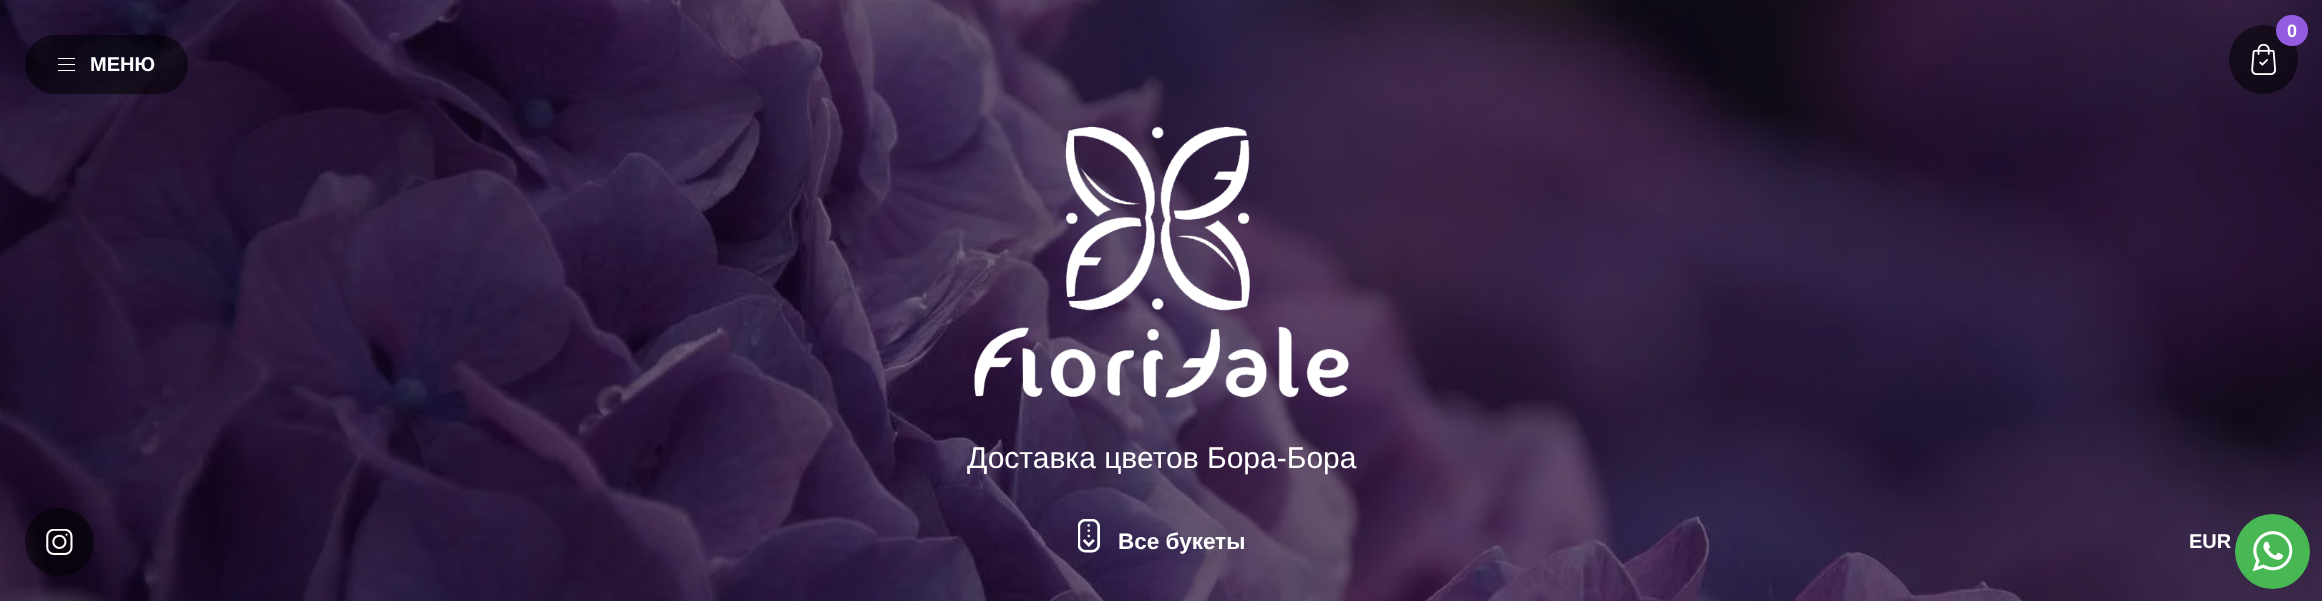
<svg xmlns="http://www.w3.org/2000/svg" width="2322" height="601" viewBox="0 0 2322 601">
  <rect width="100%" height="100%" fill="#fff"/>
  <image x="0" y="0" width="2322" height="601" href="img/1.png"/>
  <circle cx="2263.5" cy="59.5" r="34.5" fill="#0000008a"/>
  <rect x="2276" y="15" width="32" height="31" rx="15.5" fill="#935ce0"/>
  <image x="2251" y="44" width="25" height="31" href="img/2.png"/>
  <rect x="25" y="35" width="163" height="59" rx="29.5" fill="#0000008a"/>
  <path d="M58 58h17v1H58z" fill="#fff"/>
  <path d="M58 64h17v1H58z" fill="#fff"/>
  <path d="M58 70h17v1H58z" fill="#fff"/>
  <image x="974" y="126" width="375" height="272" href="img/3.png"/>
  <rect x="25" y="508" width="69" height="68" rx="34" fill="#0000008a"/>
  <image x="46" y="529" width="27" height="26" href="img/4.png"/>
  <image x="1078" y="519" width="22" height="34" href="img/5.png"/>
  <rect x="2235" y="516" width="75" height="75" rx="37.5" fill="#00000029" filter="blur(20px)"/>
  <circle cx="2272.5" cy="551.5" r="37.5" fill="#48b854"/>
  <image x="2253" y="531" width="40" height="41" href="img/6.png"/>
  <text x="2287" y="37" font-family="Liberation Sans" font-size="18" font-weight="bold" fill="#fff">0</text>
  <text x="90" y="71" font-family="Liberation Sans" font-size="20" font-weight="bold" fill="#fff">МЕНЮ</text>
  <text x="967" y="468" font-family="Liberation Sans" font-size="30" fill="#fff">Доставка цветов Бора-Бора</text>
  <text x="1118" y="549" font-family="Liberation Sans" font-size="22.5" font-weight="bold" fill="#fff">Все букеты</text>
  <text x="2189" y="548" font-family="Liberation Sans" font-size="20" font-weight="bold" fill="#fff">EUR</text>
</svg>
